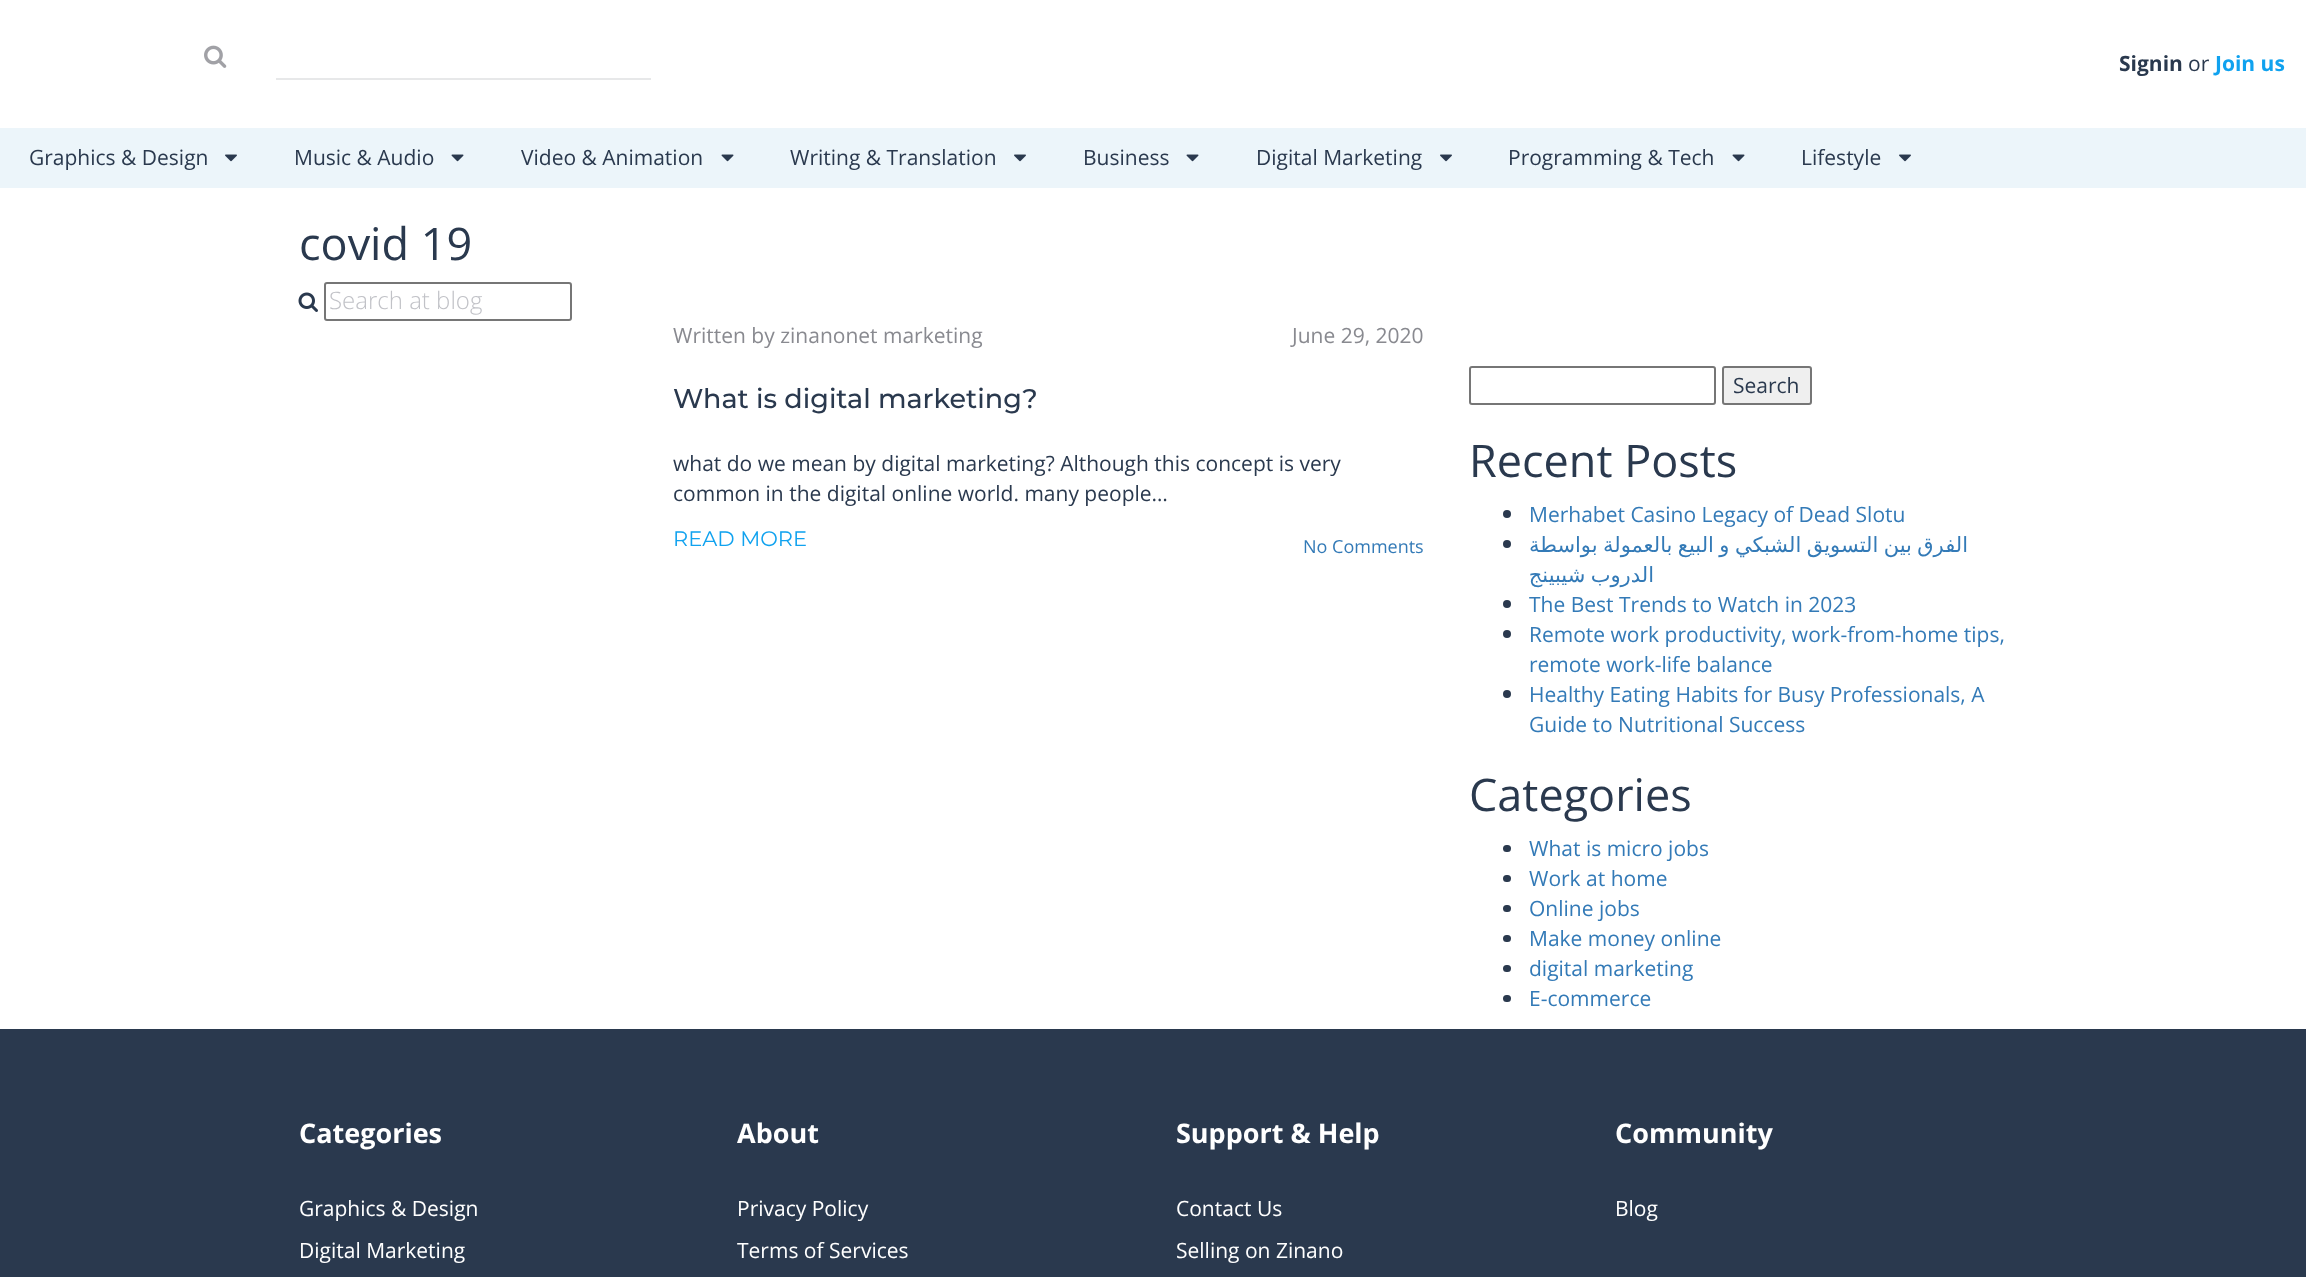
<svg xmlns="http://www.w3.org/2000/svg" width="2306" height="1277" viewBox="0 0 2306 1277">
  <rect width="100%" height="100%" fill="#fff"/>
  <image x="204" y="45" width="23" height="23" href="img/1.png"/>
  <path d="M276 78h375v2H276z" fill="#e7e8e9"/>
  <path d="M0 128h2306v60H0z" fill="#ecf5fa"/>
  <image x="225" y="154" width="12" height="8" href="img/2.png"/>
  <image x="451" y="154" width="13" height="8" href="img/3.png"/>
  <image x="721" y="154" width="13" height="8" href="img/3.png"/>
  <image x="1014" y="154" width="12" height="8" href="img/2.png"/>
  <image x="1186" y="154" width="13" height="8" href="img/3.png"/>
  <image x="1440" y="154" width="12" height="8" href="img/2.png"/>
  <image x="1732" y="154" width="13" height="8" href="img/3.png"/>
  <image x="1899" y="154" width="12" height="8" href="img/2.png"/>
  <image x="298" y="292" width="20" height="20" href="img/4.png"/>
  <rect x="325" y="283" width="246" height="37" rx="2" fill="none" stroke="#767676" stroke-width="2"/>
  <rect x="1470" y="367" width="245" height="37" rx="2" fill="none" stroke="#767676" stroke-width="2"/>
  <rect x="1723" y="367" width="88" height="37" rx="2" fill="#efefef" stroke="#767676" stroke-width="2"/>
  <circle cx="1507" cy="514" r="4" fill="#2a394e"/>
  <circle cx="1507" cy="544" r="4" fill="#2a394e"/>
  <circle cx="1507" cy="604" r="4" fill="#2a394e"/>
  <circle cx="1507" cy="634" r="4" fill="#2a394e"/>
  <circle cx="1507" cy="694" r="4" fill="#2a394e"/>
  <rect x="1503" y="845" width="8" height="7" rx="3.5" fill="#2a394e"/>
  <rect x="1503" y="875" width="8" height="7" rx="3.5" fill="#2a394e"/>
  <rect x="1503" y="905" width="8" height="7" rx="3.5" fill="#2a394e"/>
  <rect x="1503" y="935" width="8" height="7" rx="3.5" fill="#2a394e"/>
  <rect x="1503" y="965" width="8" height="7" rx="3.5" fill="#2a394e"/>
  <rect x="1503" y="995" width="8" height="7" rx="3.5" fill="#2a394e"/>
  <path d="M0 1029h2306v248H0z" fill="#2a394e"/>
  <text x="2119" y="71" font-family="Open Sans" font-size="21" font-weight="bold" fill="#2a394e">Signin</text>
  <text x="2188" y="71" font-family="Open Sans" font-size="21" fill="#2a394e">or</text>
  <text x="2215" y="71" font-family="Open Sans" font-size="21" font-weight="bold" fill="#10a2ef">Join us</text>
  <g font-family="Open Sans" font-size="21" fill="#2a394e">
    <text x="29" y="165">Graphics &amp; Design</text>
    <text x="294" y="165">Music &amp; Audio</text>
    <text x="521" y="165">Video &amp; Animation</text>
    <text x="790" y="165">Writing &amp; Translation</text>
    <text x="1083" y="165">Business</text>
    <text x="1256" y="165">Digital Marketing</text>
    <text x="1508" y="165">Programming &amp; Tech</text>
    <text x="1801" y="165">Lifestyle</text>
  </g>
  <text x="299" y="260" font-family="Open Sans" font-size="45" fill="#2a394e">covid 19</text>
  <text x="329" y="309" font-family="Open Sans" font-size="24" font-weight="300" fill="#c1c2c7">Search at blog</text>
  <g font-family="Open Sans" font-size="21" fill="#898a90">
    <text x="673" y="343">Written by zinanonet marketing</text>
    <text x="1292" y="343">June 29, 2020</text>
  </g>
  <text x="673" y="408" font-family="Montserrat" font-size="27" font-weight="500" fill="#2a394e">What is digital marketing?</text>
  <g font-family="Open Sans" font-size="21" fill="#2a394e">
    <text x="673" y="471">what do we mean by digital marketing? Although this concept is very</text>
    <text x="673" y="501">common in the digital online world. many people…</text>
  </g>
  <text x="673" y="546" font-family="Montserrat" font-size="21" fill="#10a2ef">READ MORE</text>
  <text x="1303" y="553" font-family="Open Sans" font-size="18" fill="#337ab7">No Comments</text>
  <text x="1733" y="393" font-family="Open Sans" font-size="21" fill="#2a394e">Search</text>
  <text x="1469" y="477" font-family="Open Sans" font-size="45" fill="#2a394e">Recent Posts</text>
  <text x="1529" y="522" font-family="Open Sans" font-size="21" fill="#337ab7">Merhabet Casino Legacy of Dead Slotu</text>
  <g font-family="DejaVu Sans" font-size="21" direction="rtl" fill="#337ab7">
    <text x="1968" y="552" word-spacing="-1.25">الفرق بين التسويق الشبكي و البيع بالعمولة بواسطة</text>
    <text x="1654" y="582" word-spacing="-1.25">الدروب شيبينج</text>
  </g>
  <g font-family="Open Sans" font-size="21" fill="#337ab7">
    <text x="1529" y="612">The Best Trends to Watch in 2023</text>
    <text x="1529" y="642">Remote work productivity, work-from-home tips,</text>
    <text x="1529" y="672">remote work-life balance</text>
    <text x="1529" y="702">Healthy Eating Habits for Busy Professionals, A</text>
    <text x="1529" y="732">Guide to Nutritional Success</text>
  </g>
  <text x="1469" y="811" font-family="Open Sans" font-size="45" fill="#2a394e">Categories</text>
  <g font-family="Open Sans" font-size="21" fill="#337ab7">
    <text x="1529" y="856">What is micro jobs</text>
    <text x="1529" y="886">Work at home</text>
    <text x="1529" y="916">Online jobs</text>
    <text x="1529" y="946">Make money online</text>
    <text x="1529" y="976">digital marketing</text>
    <text x="1529" y="1006">E-commerce</text>
  </g>
  <text x="299" y="1143" font-family="Open Sans" font-size="27" font-weight="bold" fill="#fff">Categories</text>
  <g font-family="Open Sans" font-size="21" fill="#fff">
    <text x="299" y="1216">Graphics &amp; Design</text>
    <text x="299" y="1258">Digital Marketing</text>
  </g>
  <text x="737" y="1143" font-family="Open Sans" font-size="27" font-weight="bold" fill="#fff">About</text>
  <g font-family="Open Sans" font-size="21" fill="#fff">
    <text x="737" y="1216">Privacy Policy</text>
    <text x="737" y="1258">Terms of Services</text>
  </g>
  <text x="1176" y="1143" font-family="Open Sans" font-size="27" font-weight="bold" fill="#fff">Support &amp; Help</text>
  <g font-family="Open Sans" font-size="21" fill="#fff">
    <text x="1176" y="1216">Contact Us</text>
    <text x="1176" y="1258">Selling on Zinano</text>
  </g>
  <text x="1615" y="1143" font-family="Open Sans" font-size="27" font-weight="bold" fill="#fff">Community</text>
  <text x="1615" y="1216" font-family="Open Sans" font-size="21" fill="#fff">Blog</text>
</svg>
